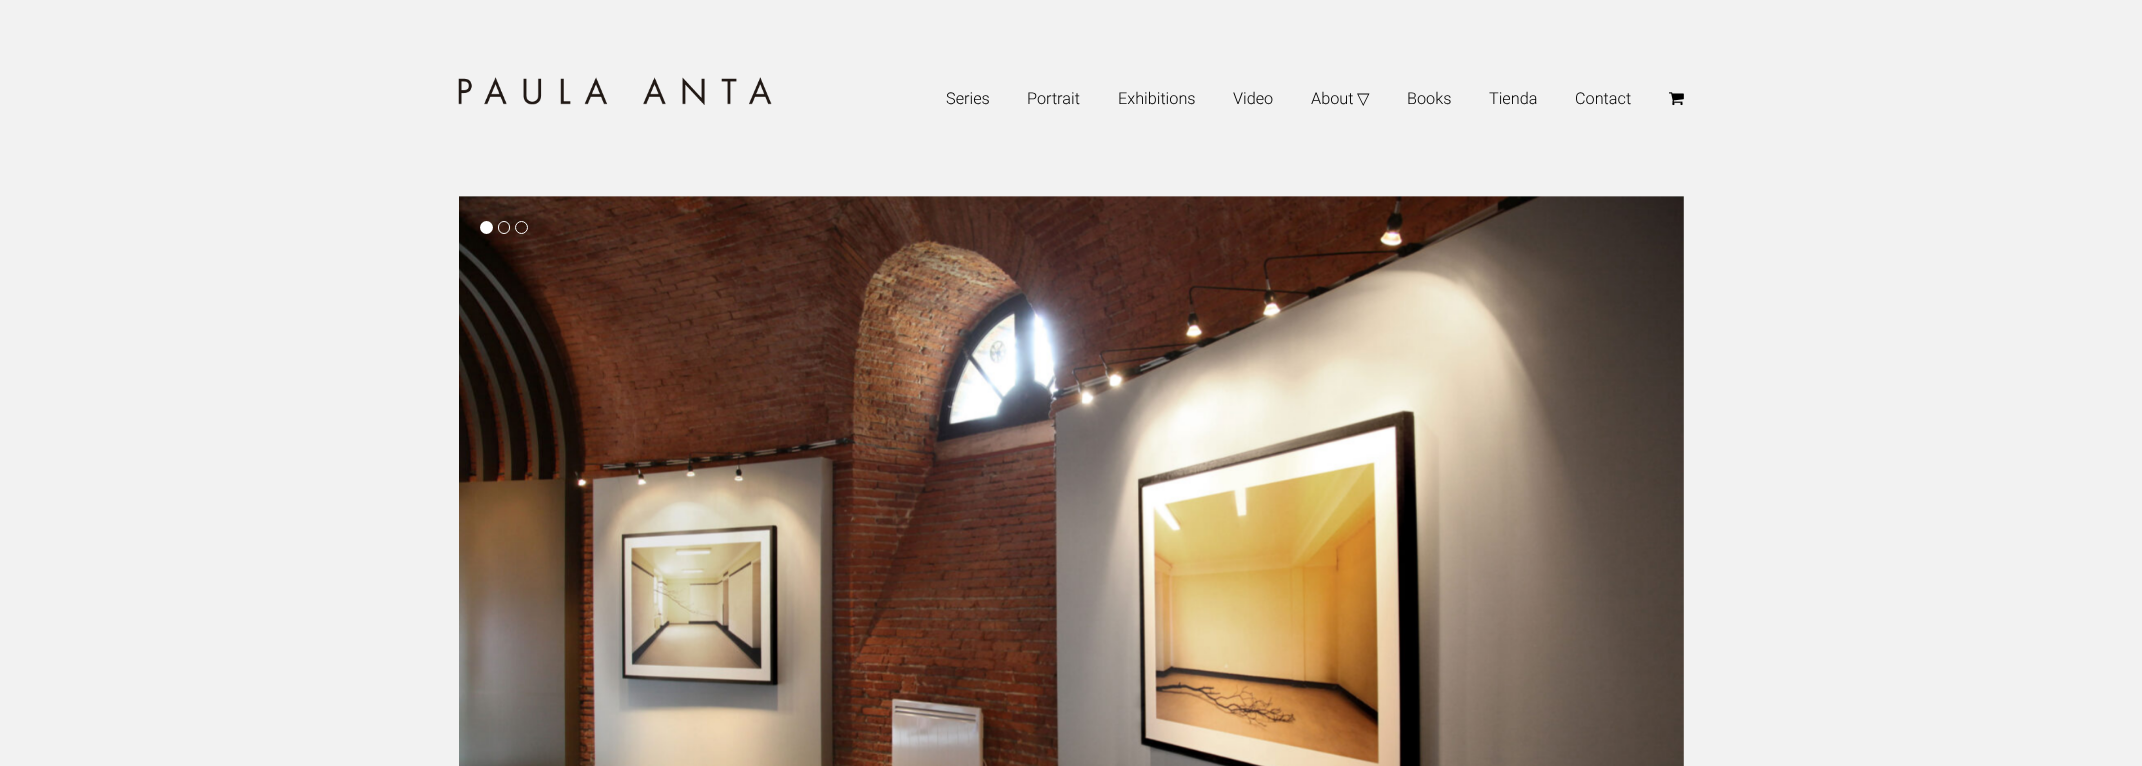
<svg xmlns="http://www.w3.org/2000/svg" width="2142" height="766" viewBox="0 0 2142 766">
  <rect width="100%" height="100%" fill="#f2f2f2"/>
  <image x="458" y="77" width="314" height="28" href="img/1.png"/>
  <image x="1669" y="92" width="15" height="14" href="img/2.png"/>
  <image x="459" y="196" width="1225" height="570" href="img/3.png"/>
  <circle cx="486.5" cy="227.5" r="6.5" fill="#fff"/>
  <rect x="498.5" y="221.5" width="11" height="12" rx="5.5" fill="none" stroke="#fff"/>
  <circle cx="521.5" cy="227.5" r="6" fill="none" stroke="#fff"/>
  <g font-family="Roboto" font-size="16.25" font-weight="300" fill="#000">
    <text x="946" y="104">Series</text>
    <text x="1027" y="104">Portrait</text>
    <text x="1118" y="104">Exhibitions</text>
    <text x="1233" y="104">Video</text>
    <text x="1311" y="104">About</text>
  </g>
  <text x="1357" y="104" font-family="DejaVu Sans" font-size="16.25" fill="#000">▽</text>
  <g font-family="Roboto" font-size="16.25" font-weight="300" fill="#000">
    <text x="1407" y="104">Books</text>
    <text x="1489" y="104">Tienda</text>
    <text x="1575" y="104">Contact</text>
  </g>
</svg>
